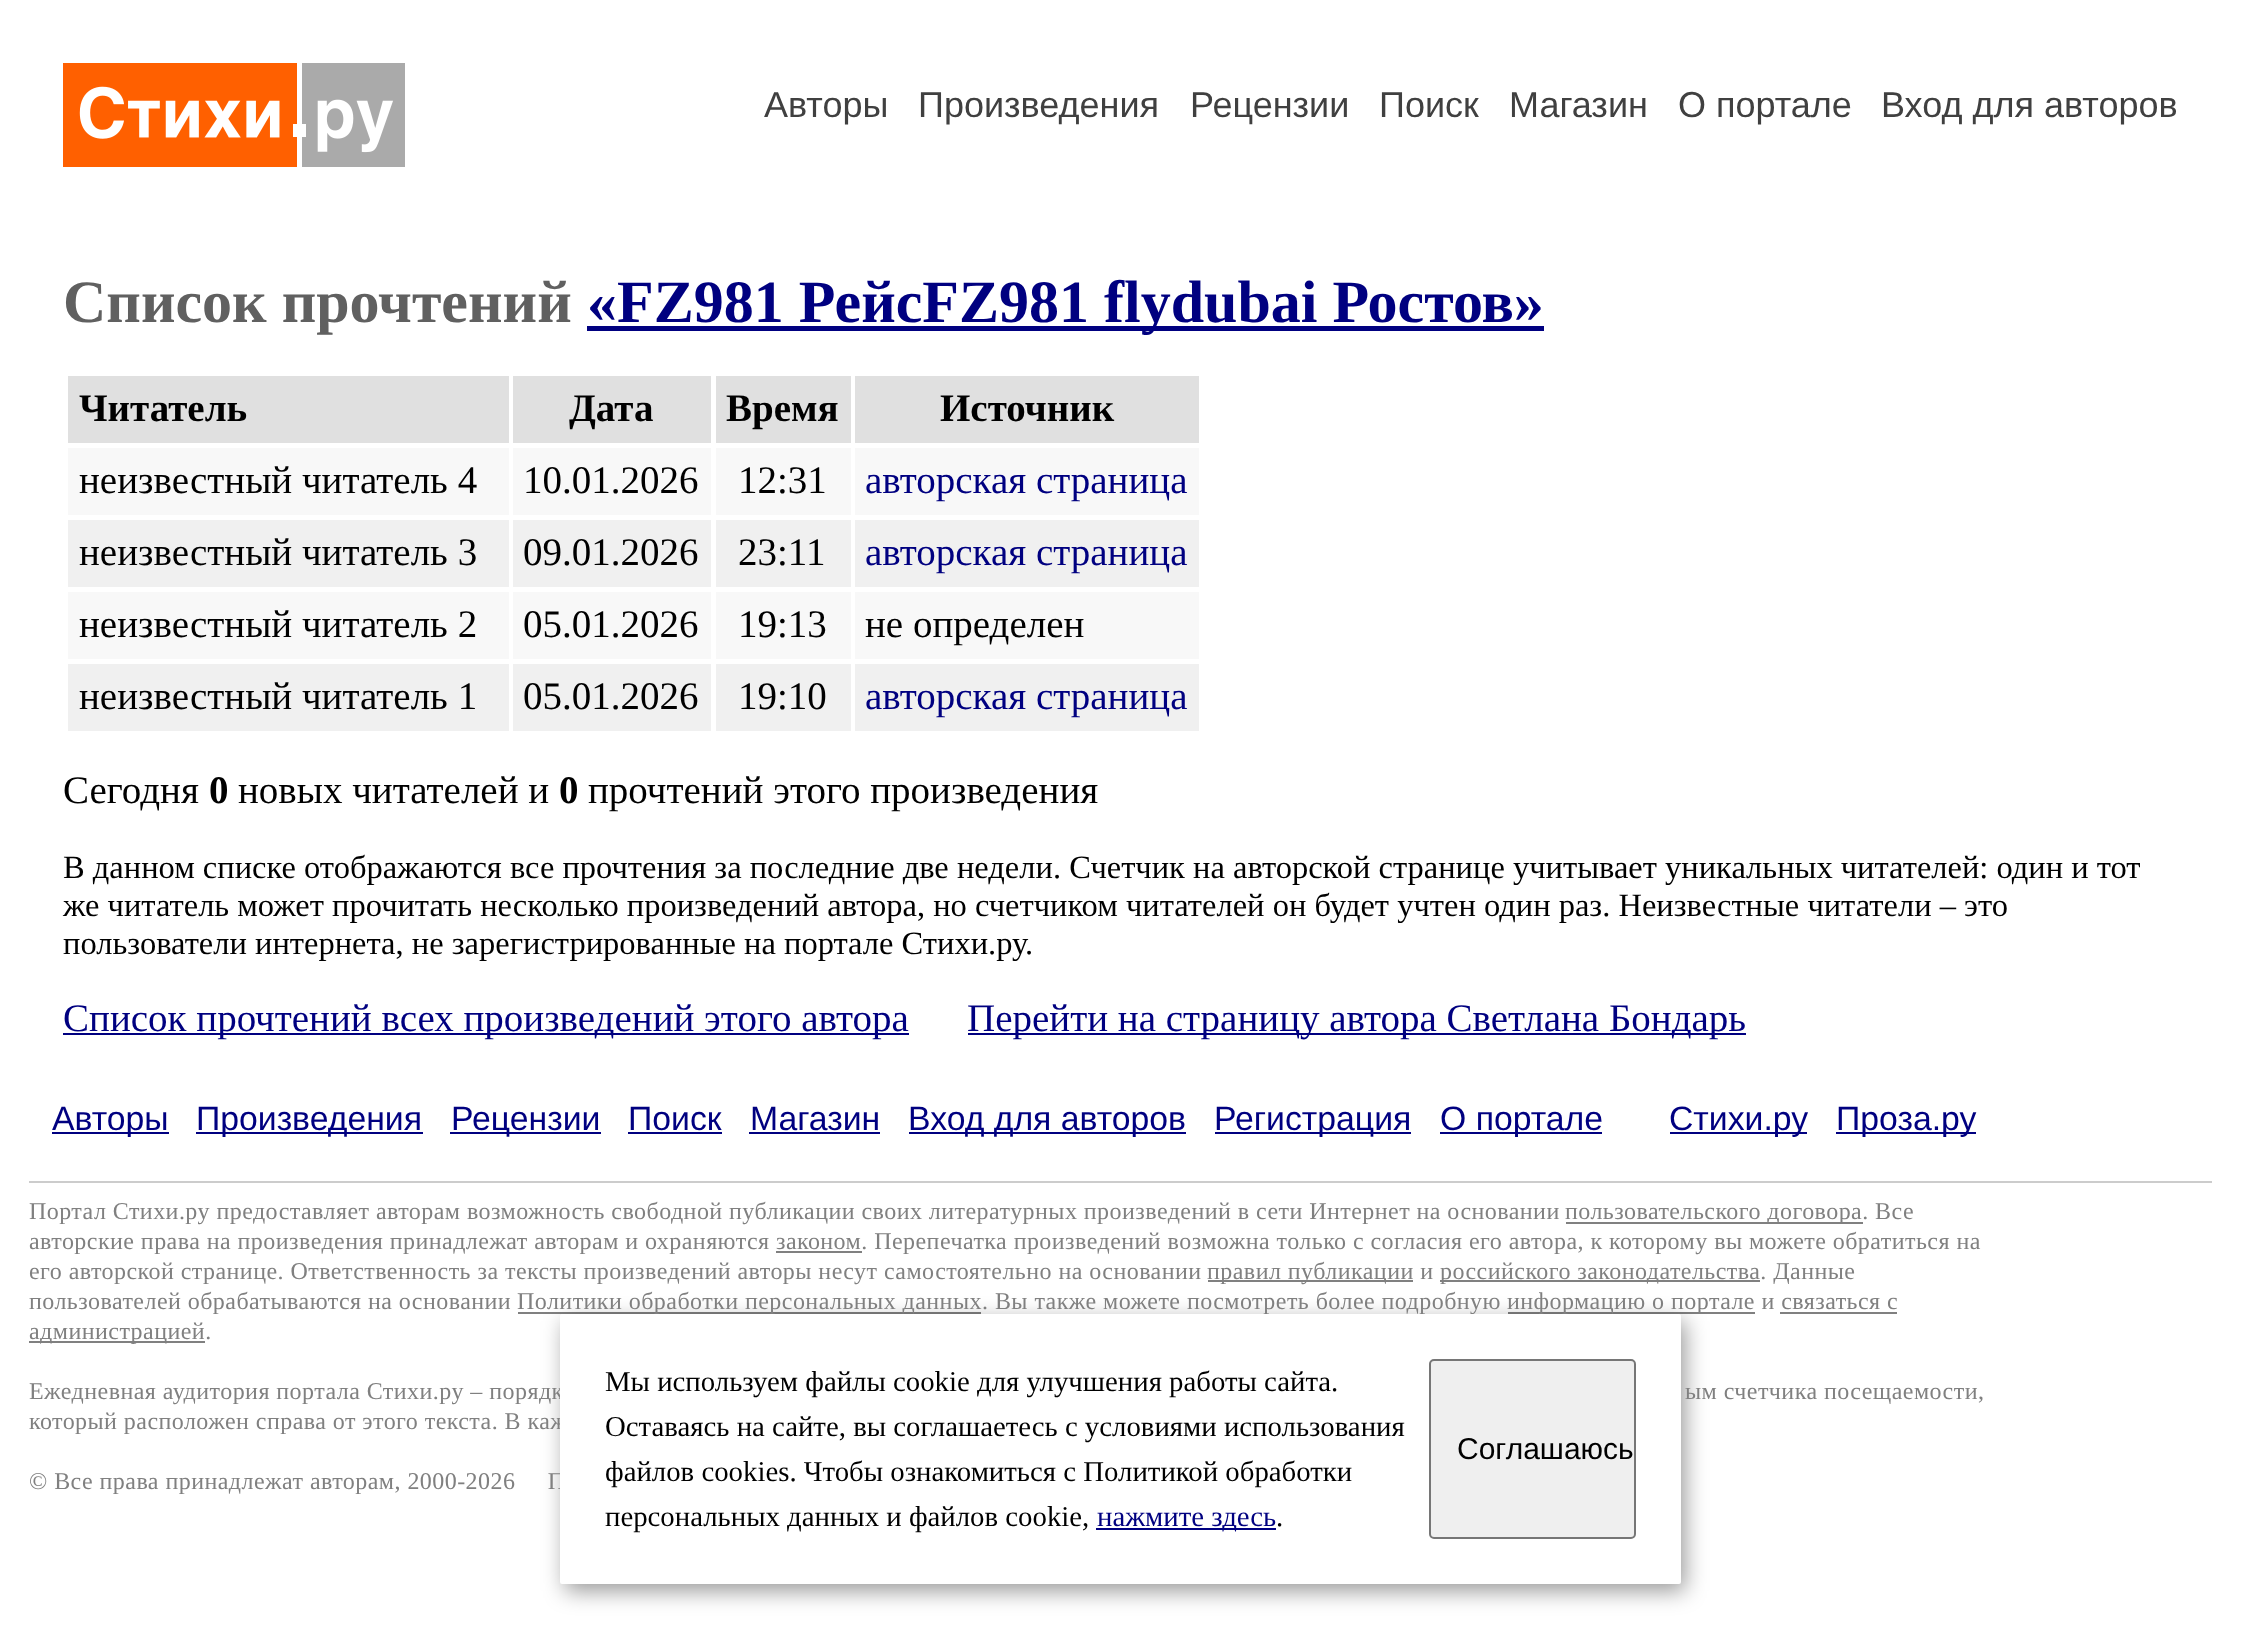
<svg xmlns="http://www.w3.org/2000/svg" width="2241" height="1651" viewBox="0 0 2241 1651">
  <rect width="100%" height="100%" fill="#fff"/>
  <image x="63" y="63" width="342" height="104" href="img/1.png"/>
  <path d="M587 326h957v5H587z" fill="#000080"/>
  <path d="M68 376h441v67H68z" fill="#e0e0e0"/>
  <path d="M513 376h198v67H513z" fill="#e0e0e0"/>
  <path d="M716 376h135v67H716z" fill="#e0e0e0"/>
  <path d="M855 376h344v67H855z" fill="#e0e0e0"/>
  <path d="M68 448h441v67H68z" fill="#f8f8f8"/>
  <path d="M513 448h198v67H513z" fill="#f8f8f8"/>
  <path d="M716 448h135v67H716z" fill="#f8f8f8"/>
  <path d="M855 448h344v67H855z" fill="#f8f8f8"/>
  <path d="M68 520h441v67H68z" fill="#f0f0f0"/>
  <path d="M513 520h198v67H513z" fill="#f0f0f0"/>
  <path d="M716 520h135v67H716z" fill="#f0f0f0"/>
  <path d="M855 520h344v67H855z" fill="#f0f0f0"/>
  <path d="M68 592h441v67H68z" fill="#f8f8f8"/>
  <path d="M513 592h198v67H513z" fill="#f8f8f8"/>
  <path d="M716 592h135v67H716z" fill="#f8f8f8"/>
  <path d="M855 592h344v67H855z" fill="#f8f8f8"/>
  <path d="M68 664h441v67H68z" fill="#f0f0f0"/>
  <path d="M513 664h198v67H513z" fill="#f0f0f0"/>
  <path d="M716 664h135v67H716z" fill="#f0f0f0"/>
  <path d="M855 664h344v67H855z" fill="#f0f0f0"/>
  <path d="M63 1033h846v2H63z" fill="#000080"/>
  <path d="M968 1033h778v2H968z" fill="#000080"/>
  <path d="M518 1312h463v2H518z" fill="#808080"/>
  <path d="M1508 1312h247v2H1508z" fill="#808080"/>
  <rect x="565" y="1321" width="1120" height="270" rx="2" fill="#00000066" filter="blur(11px)"/>
  <path d="M52 1132h117v2H52z" fill="#000080"/>
  <path d="M196 1132h227v2H196z" fill="#000080"/>
  <path d="M450 1132h151v2H450z" fill="#000080"/>
  <path d="M628 1132h94v2H628z" fill="#000080"/>
  <path d="M749 1132h131v2H749z" fill="#000080"/>
  <path d="M909 1132h277v2H909z" fill="#000080"/>
  <path d="M1215 1132h196v2H1215z" fill="#000080"/>
  <path d="M1440 1132h162v2H1440z" fill="#000080"/>
  <path d="M1670 1132h137v2H1670z" fill="#000080"/>
  <path d="M1836 1132h140v2H1836z" fill="#000080"/>
  <path d="M29 1181h2183v2H29z" fill="#ccc"/>
  <path d="M1566 1222h297v2H1566z" fill="#808080"/>
  <path d="M776 1251h86v2H776z" fill="#808080"/>
  <path d="M1208 1280h205v2H1208z" fill="#808080"/>
  <path d="M1440 1280h320v2H1440z" fill="#808080"/>
  <path d="M1780 1312h117v2H1780z" fill="#808080"/>
  <path d="M29 1341h176v2H29z" fill="#808080"/>
  <g font-family="Liberation Sans" font-size="36" fill="#404040">
    <text x="764" y="117">Авторы</text>
    <text x="918" y="117">Произведения</text>
    <text x="1190" y="117">Рецензии</text>
    <text x="1379" y="117">Поиск</text>
    <text x="1509" y="117">Магазин</text>
    <text x="1678" y="117">О портале</text>
    <text x="1881" y="117">Вход для авторов</text>
  </g>
  <text x="63" y="322" font-family="Liberation Serif" font-size="60" font-weight="bold" fill="#606060">Список прочтений</text>
  <text x="587" y="322" font-family="Liberation Serif" font-size="60" font-weight="bold" fill="#000080">«FZ981 РейсFZ981 flydubai Ростов»</text>
  <g font-family="Liberation Serif" font-size="39" font-weight="bold" fill="#000">
    <text x="79" y="421">Читатель</text>
    <text x="569" y="421">Дата</text>
    <text x="726" y="421">Время</text>
    <text x="940" y="421">Источник</text>
  </g>
  <g font-family="Liberation Serif" font-size="39" fill="#000">
    <text x="79" y="493">неизвестный читатель 4</text>
    <text x="523" y="493">10.01.2026</text>
    <text x="738" y="493">12:31</text>
  </g>
  <text x="865" y="493" font-family="Liberation Serif" font-size="39" fill="#000080">авторская страница</text>
  <g font-family="Liberation Serif" font-size="39" fill="#000">
    <text x="79" y="565">неизвестный читатель 3</text>
    <text x="523" y="565">09.01.2026</text>
    <text x="738" y="565">23:11</text>
  </g>
  <text x="865" y="565" font-family="Liberation Serif" font-size="39" fill="#000080">авторская страница</text>
  <g font-family="Liberation Serif" font-size="39" fill="#000">
    <text x="79" y="637">неизвестный читатель 2</text>
    <text x="523" y="637">05.01.2026</text>
    <text x="738" y="637">19:13</text>
    <text x="865" y="637">не определен</text>
    <text x="79" y="709">неизвестный читатель 1</text>
    <text x="523" y="709">05.01.2026</text>
    <text x="738" y="709">19:10</text>
  </g>
  <text x="865" y="709" font-family="Liberation Serif" font-size="39" fill="#000080">авторская страница</text>
  <text x="63" y="803" font-family="Liberation Serif" font-size="39" fill="#000">Сегодня</text>
  <text x="209" y="803" font-family="Liberation Serif" font-size="39" font-weight="bold" fill="#000">0</text>
  <text x="238" y="803" font-family="Liberation Serif" font-size="39" fill="#000">новых читателей и</text>
  <text x="559" y="803" font-family="Liberation Serif" font-size="39" font-weight="bold" fill="#000">0</text>
  <text x="588" y="803" font-family="Liberation Serif" font-size="39" fill="#000">прочтений этого произведения</text>
  <g font-family="Liberation Serif" font-size="32.5" fill="#000">
    <text x="63" y="878">В данном списке отображаются все прочтения за последние две недели. Счетчик на авторской странице учитывает уникальных читателей: один и тот</text>
    <text x="63" y="916">же читатель может прочитать несколько произведений автора, но счетчиком читателей он будет учтен один раз. Неизвестные читатели – это</text>
    <text x="63" y="954">пользователи интернета, не зарегистрированные на портале Стихи.ру.</text>
  </g>
  <g font-family="Liberation Serif" font-size="39" fill="#000080">
    <text x="63" y="1031">Список прочтений всех произведений этого автора</text>
    <text x="967" y="1031">Перейти на страницу автора Светлана Бондарь</text>
  </g>
  <g font-family="Liberation Sans" font-size="33.75" fill="#000080">
    <text x="52" y="1130">Авторы</text>
    <text x="196" y="1130">Произведения</text>
    <text x="451" y="1130">Рецензии</text>
    <text x="628" y="1130">Поиск</text>
    <text x="750" y="1130">Магазин</text>
    <text x="908" y="1130">Вход для авторов</text>
    <text x="1214" y="1130">Регистрация</text>
    <text x="1440" y="1130">О портале</text>
    <text x="1669" y="1130">Стихи.ру</text>
    <text x="1836" y="1130">Проза.ру</text>
  </g>
  <g font-family="Liberation Serif" font-size="24" letter-spacing="0.45" fill="#808080">
    <text x="29" y="1219">Портал Стихи.ру предоставляет авторам возможность свободной публикации своих литературных произведений в сети Интернет на основании</text>
    <text x="1565" y="1219">пользовательского договора. Все</text>
    <text x="29" y="1249">авторские права на произведения принадлежат авторам и охраняются законом. Перепечатка произведений возможна только с согласия его автора, к которому вы можете обратиться на</text>
    <text x="29" y="1279">его авторской странице. Ответственность за тексты произведений авторы несут самостоятельно на основании</text>
    <text x="1207" y="1279">правил публикации и</text>
    <text x="1440" y="1279">российского законодательства. Данные</text>
    <text x="29" y="1309">пользователей обрабатываются на основании</text>
    <text x="517" y="1309">Политики обработки персональных данных</text>
    <text x="982" y="1309">. Вы также можете посмотреть более подробную</text>
    <text x="1507" y="1309">информацию о портале и связаться с</text>
    <text x="29" y="1339">администрацией.</text>
    <text x="29" y="1399">Ежедневная аудитория портала Стихи.ру – порядк</text>
    <text x="1685" y="1399">ым счетчика посещаемости,</text>
    <text x="29" y="1429">который расположен справа от этого текста. В каж</text>
    <text x="29" y="1489" xml:space="preserve">© Все права принадлежат авторам, 2000-2026     П</text>
  </g>
  <rect x="560" y="1314" width="1121" height="270" rx="2" fill="#fff"/>
  <rect x="1430" y="1360" width="205" height="178" rx="4" fill="#efefef" stroke="#767676" stroke-width="2"/>
  <text x="1457" y="1459" font-family="Liberation Sans" font-size="30" fill="#000">Соглашаюсь</text>
  <text x="1276" y="1526" font-family="Liberation Serif" font-size="28.8" fill="#000">.</text>
  <path d="M1096 1528h180v2H1096z" fill="#000080"/>
  <text x="1097" y="1526" font-family="Liberation Serif" font-size="28.8" fill="#000080">нажмите здесь</text>
  <g font-family="Liberation Serif" font-size="28.8" fill="#000">
    <text x="605" y="1526">персональных данных и файлов cookie,</text>
    <text x="605" y="1481">файлов cookies. Чтобы ознакомиться с Политикой обработки</text>
    <text x="605" y="1436">Оставаясь на сайте, вы соглашаетесь с условиями использования</text>
    <text x="605" y="1391">Мы используем файлы cookie для улучшения работы сайта.</text>
  </g>
</svg>
